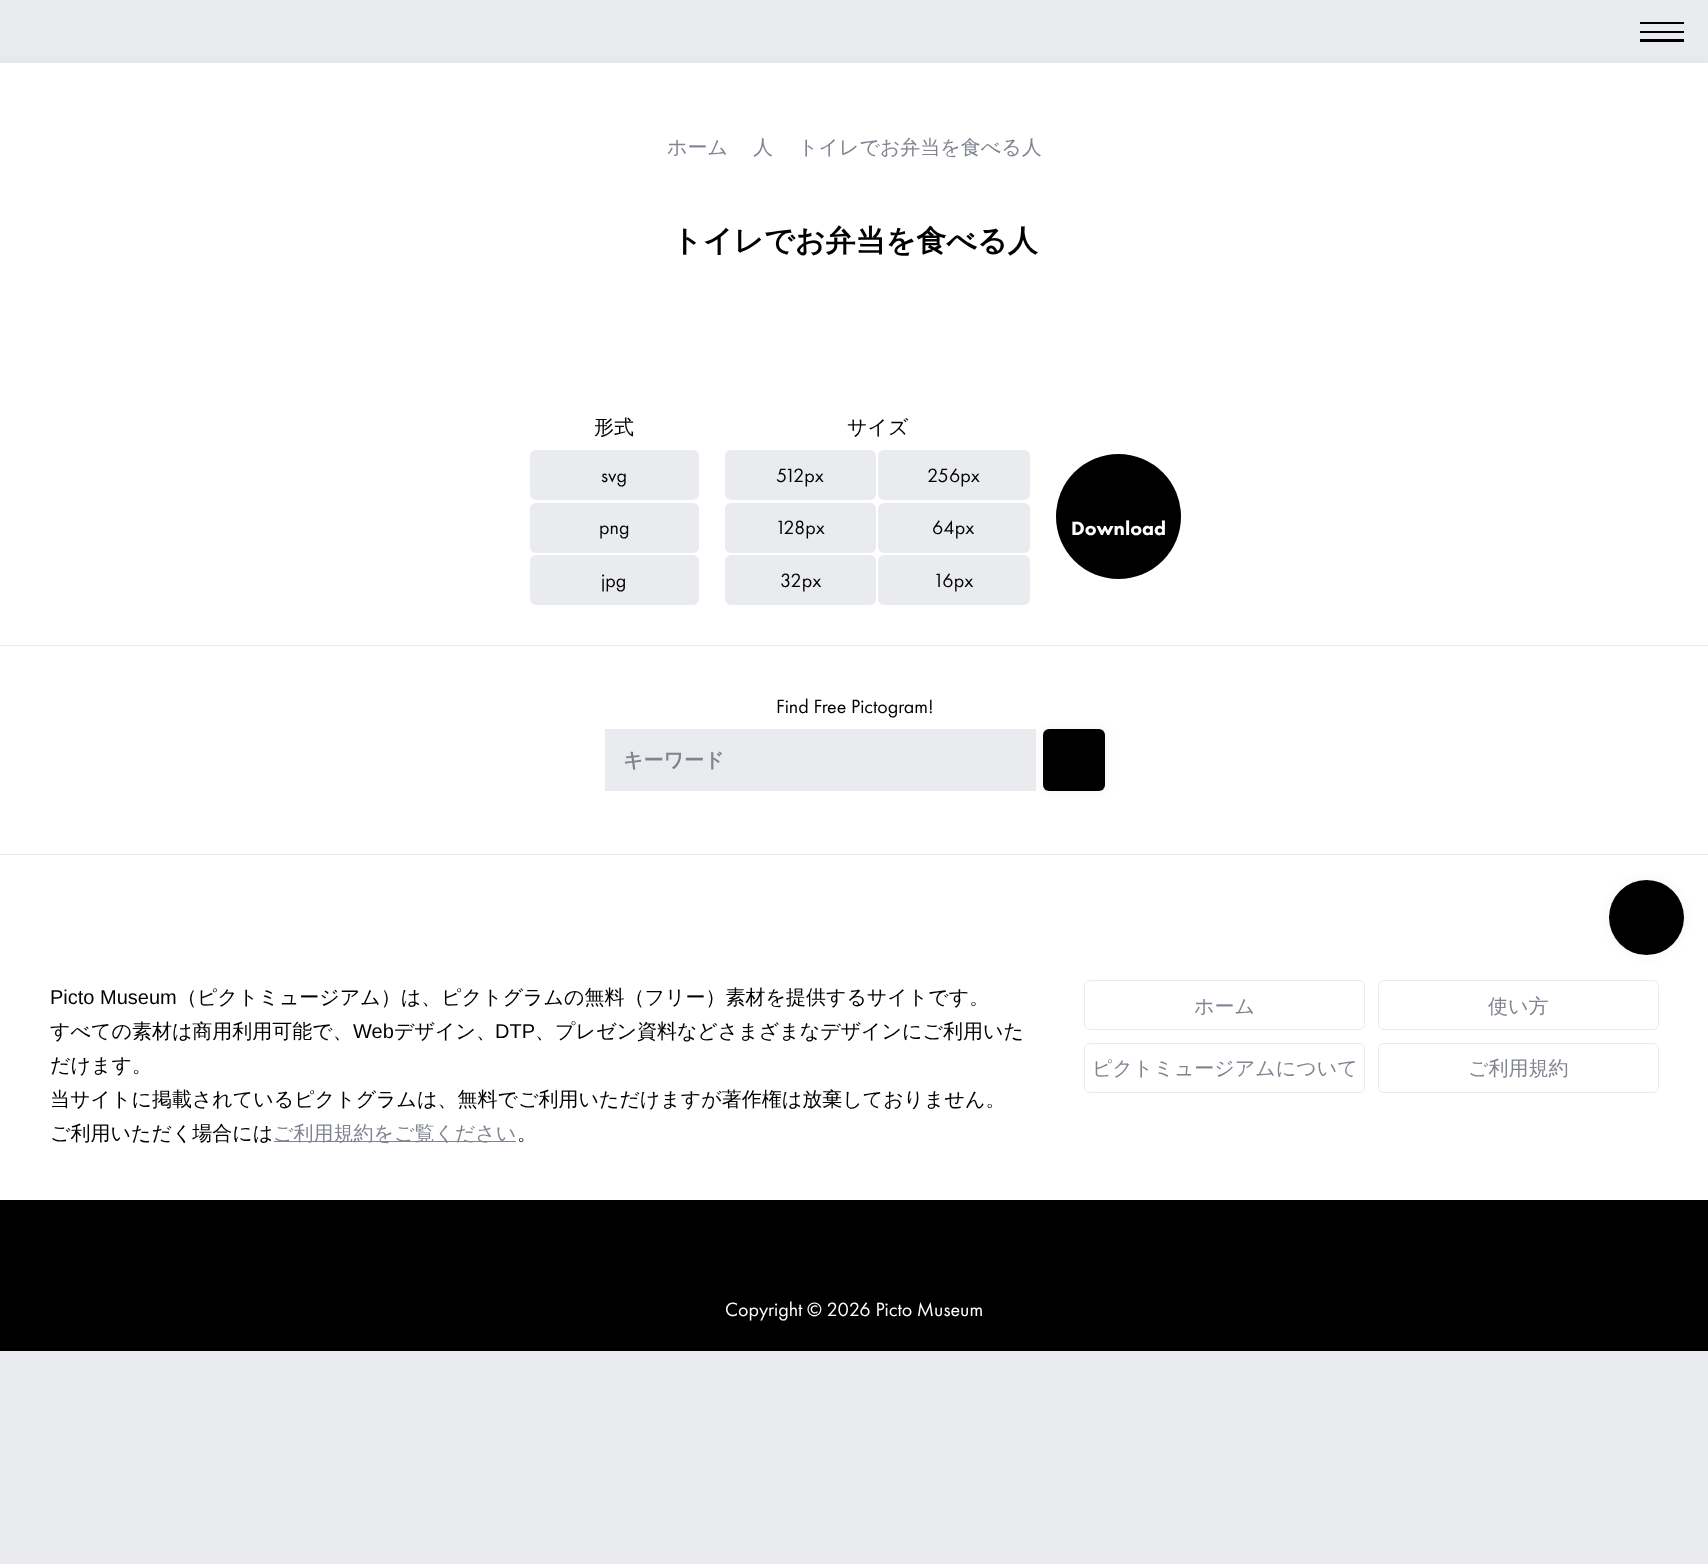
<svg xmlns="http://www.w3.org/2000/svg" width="1708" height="1564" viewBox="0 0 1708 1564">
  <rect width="100%" height="100%" fill="#eaebef"/>
  <path d="M1640 22h44v2H1640z" fill="#000"/>
  <path d="M1640 31h44v2H1640z" fill="#000"/>
  <path d="M1640 39h44v3H1640z" fill="#000"/>
  <path d="M0 63h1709v817H0z" fill="#0000000d" filter="blur(6px)"/>
  <path d="M0 63h1708v1137H0z" fill="#fff"/>
  <rect x="530" y="450" width="169" height="50" rx="6" fill="#eaebef"/>
  <rect x="530" y="503" width="169" height="50" rx="6" fill="#eaebef"/>
  <rect x="530" y="555" width="169" height="50" rx="6" fill="#eaebef"/>
  <rect x="725" y="450" width="151" height="50" rx="6" fill="#eaebef"/>
  <rect x="878" y="450" width="152" height="50" rx="6" fill="#eaebef"/>
  <rect x="725" y="503" width="151" height="50" rx="6" fill="#eaebef"/>
  <rect x="878" y="503" width="152" height="50" rx="6" fill="#eaebef"/>
  <rect x="725" y="555" width="151" height="50" rx="6" fill="#eaebef"/>
  <rect x="878" y="555" width="152" height="50" rx="6" fill="#eaebef"/>
  <circle cx="1118.5" cy="516.5" r="62.5" fill="#000"/>
  <path d="M0 645h1708v1H0z" fill="#eaebef"/>
  <path d="M0 854h1708v1H0z" fill="#eaebef"/>
  <path d="M605 729h431v62H605z" fill="#eaebef"/>
  <rect x="1043" y="729" width="62" height="62" rx="6" fill="#0000000d" filter="blur(6px)"/>
  <rect x="1043" y="729" width="62" height="62" rx="6" fill="#000"/>
  <rect x="1609" y="880" width="75" height="75" rx="37.5" fill="#0000000d" filter="blur(6px)"/>
  <circle cx="1646.5" cy="917.5" r="37.5" fill="#000"/>
  <path d="M274 1141h242v1H274z" fill="#808491"/>
  <rect x="1084.5" y="980.5" width="280" height="49" rx="5.5" fill="none" stroke="#eaebef"/>
  <rect x="1084.5" y="1043.5" width="280" height="49" rx="5.5" fill="none" stroke="#eaebef"/>
  <rect x="1378.5" y="980.5" width="280" height="49" rx="5.5" fill="none" stroke="#eaebef"/>
  <rect x="1378.5" y="1043.5" width="280" height="49" rx="5.5" fill="none" stroke="#eaebef"/>
  <path d="M0 1200h1708v151H0z" fill="#000"/>
  <g font-family="WenQuanYi Zen Hei" font-size="20" font-weight="500" fill="#808491">
    <text x="667" y="154">ホーム</text>
    <text x="753" y="154">人</text>
    <text x="798" y="154">トイレでお弁当を食べる人</text>
  </g>
  <text x="672" y="251" font-family="WenQuanYi Zen Hei" font-size="30" font-weight="bold" fill="#000">トイレでお弁当を食べる人</text>
  <text x="594" y="434" font-family="WenQuanYi Zen Hei" font-size="20" font-weight="500" fill="#000">形式</text>
  <g font-family="Futura PT" font-size="20" fill="#000">
    <text x="601" y="482">svg</text>
    <text x="599" y="534">png</text>
    <text x="601" y="587">jpg</text>
  </g>
  <text x="847" y="434" font-family="WenQuanYi Zen Hei" font-size="20" font-weight="500" fill="#000">サイズ</text>
  <g font-family="Futura PT" font-size="20" fill="#000">
    <text x="776" y="482">512px</text>
    <text x="927" y="482">256px</text>
    <text x="775" y="534">128px</text>
    <text x="932" y="534">64px</text>
    <text x="780" y="587">32px</text>
    <text x="933" y="587">16px</text>
  </g>
  <text x="1071" y="535" font-family="Futura PT" font-size="20" font-weight="900" fill="#fff">Download</text>
  <text x="776" y="713" font-family="Futura PT" font-size="20" fill="#000">Find Free Pictogram!</text>
  <text x="623" y="767" font-family="WenQuanYi Zen Hei" font-size="20" font-weight="bold" fill="#808491">キーワード</text>
  <text x="50" y="1004" font-family="Liberation Sans" font-size="20" fill="#000">Picto Museum</text>
  <g font-family="WenQuanYi Zen Hei" font-size="20" font-weight="500" fill="#000">
    <text x="177" y="1004">（ピクトミュージアム）は、ピクトグラムの無料（フリー）素材を提供するサイトです。</text>
    <text x="50" y="1038">すべての素材は商用利用可能で、</text>
  </g>
  <text x="353" y="1038" font-family="Liberation Sans" font-size="20" fill="#000">Web</text>
  <text x="394" y="1038" font-family="WenQuanYi Zen Hei" font-size="20" font-weight="500" fill="#000">デザイン、</text>
  <text x="495" y="1038" font-family="Liberation Sans" font-size="20" fill="#000">DTP</text>
  <g font-family="WenQuanYi Zen Hei" font-size="20" font-weight="500" fill="#000">
    <text x="535" y="1038">、プレゼン資料などさまざまなデザインにご利用いた</text>
    <text x="50" y="1072">だけます。</text>
    <text x="50" y="1106">当サイトに掲載されているピクトグラムは、無料でご利用いただけますが著作権は放棄しておりません。</text>
    <text x="50" y="1140">ご利用いただく場合には</text>
  </g>
  <text x="273" y="1140" font-family="WenQuanYi Zen Hei" font-size="20" font-weight="500" fill="#808491">ご利用規約をご覧ください</text>
  <text x="517" y="1140" font-family="WenQuanYi Zen Hei" font-size="20" font-weight="500" fill="#000">。</text>
  <g font-family="WenQuanYi Zen Hei" font-size="20" font-weight="500" fill="#808491">
    <text x="1194" y="1013">ホーム</text>
    <text x="1092" y="1075">ピクトミュージアムについて</text>
    <text x="1488" y="1013">使い方</text>
    <text x="1468" y="1075">ご利用規約</text>
  </g>
  <text x="725" y="1316" font-family="Futura PT" font-size="20" fill="#fff">Copyright © 2026 Picto Museum</text>
</svg>
